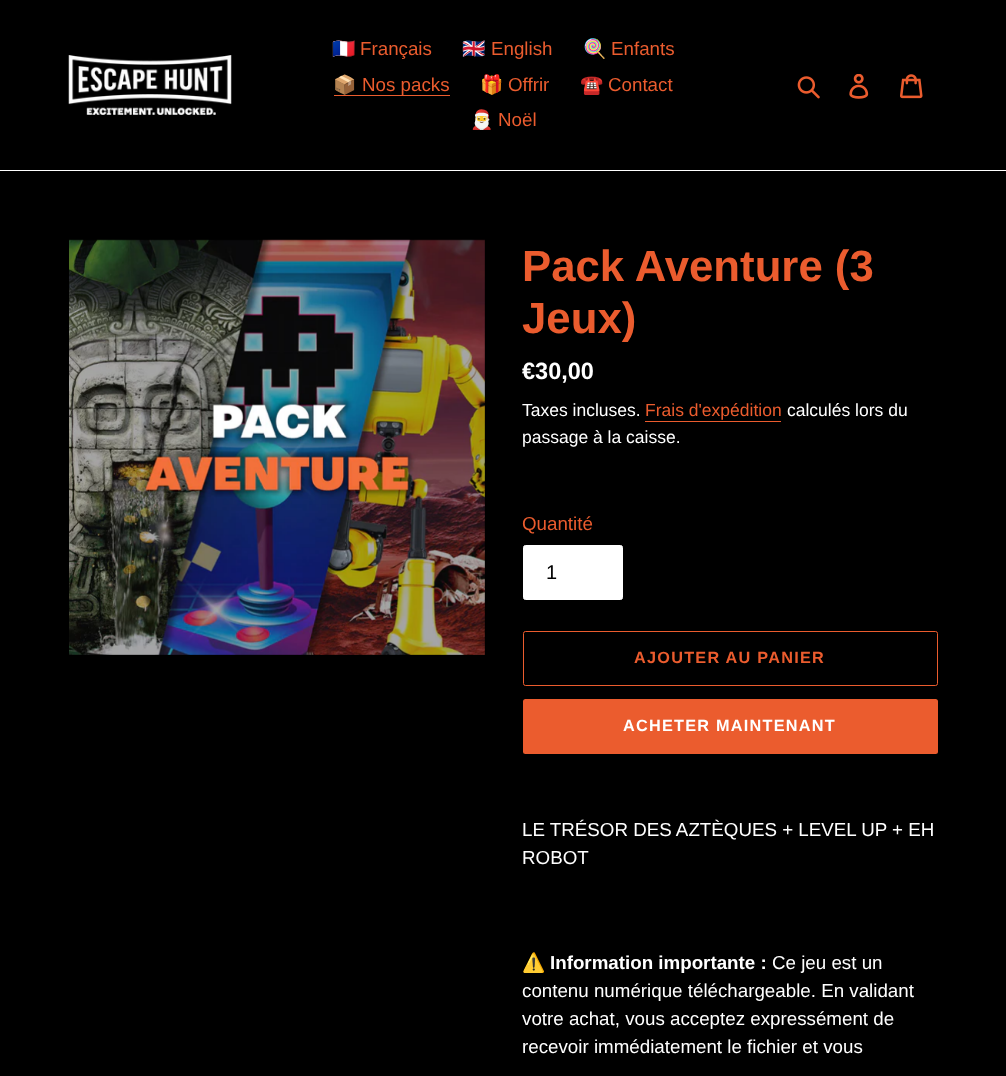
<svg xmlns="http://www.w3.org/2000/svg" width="1006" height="1076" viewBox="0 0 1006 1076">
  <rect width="100%" height="100%" fill="#000"/>
  <path d="M0 170h1006v1H0z" fill="#fff"/>
  <image x="68" y="55" width="164" height="60" href="img/1.png"/>
  <path d="M334 95h116v1H334z" fill="#eb5c2e"/>
  <image x="797" y="76" width="23" height="23" href="img/2.png"/>
  <image x="849" y="74" width="20" height="25" href="img/3.png"/>
  <image x="900" y="74" width="23" height="25" href="img/4.png"/>
  <image x="69" y="239" width="416" height="416" href="img/5.png"/>
  <path d="M645 421h136v1H645z" fill="#eb5c2e"/>
  <rect x="523.5" y="545.5" width="99" height="54" rx="2" fill="#fff" stroke="#fff"/>
  <rect x="523.5" y="631.5" width="414" height="54" rx="2" fill="none" stroke="#eb5c2e"/>
  <rect x="523" y="699" width="415" height="55" rx="2.5" fill="#eb5c2e"/>
  <text x="332" y="55" font-family="Noto Color Emoji" font-size="18.75" fill="#eb5c2e">🇫🇷</text>
  <text x="360" y="55" font-family="Liberation Sans" font-size="18.75" fill="#eb5c2e">Français</text>
  <text x="462" y="55" font-family="Noto Color Emoji" font-size="18.75" fill="#eb5c2e">🇬🇧</text>
  <text x="491" y="55" font-family="Liberation Sans" font-size="18.75" fill="#eb5c2e">English</text>
  <text x="583" y="55" font-family="Noto Color Emoji" font-size="18.75" fill="#eb5c2e">🍭</text>
  <text x="611" y="55" font-family="Liberation Sans" font-size="18.75" fill="#eb5c2e">Enfants</text>
  <text x="333" y="91" font-family="Noto Color Emoji" font-size="18.75" fill="#eb5c2e">📦</text>
  <text x="362" y="91" font-family="Liberation Sans" font-size="18.75" fill="#eb5c2e">Nos packs</text>
  <text x="480" y="91" font-family="Noto Color Emoji" font-size="18.75" fill="#eb5c2e">🎁</text>
  <text x="508" y="91" font-family="Liberation Sans" font-size="18.75" fill="#eb5c2e">Offrir</text>
  <text x="580" y="91" font-family="Noto Color Emoji" font-size="18.75" fill="#eb5c2e">☎️</text>
  <text x="608" y="91" font-family="Liberation Sans" font-size="18.75" fill="#eb5c2e">Contact</text>
  <text x="470" y="126" font-family="Noto Color Emoji" font-size="18.75" fill="#eb5c2e">🎅</text>
  <text x="498" y="126" font-family="Liberation Sans" font-size="18.75" fill="#eb5c2e">Noël</text>
  <g font-family="Liberation Sans" font-size="43.75" font-weight="bold" fill="#eb5c2e">
    <text x="522" y="281">Pack Aventure (3</text>
    <text x="522" y="333">Jeux)</text>
  </g>
  <text x="522" y="379" font-family="Liberation Sans" font-size="23.5" font-weight="bold" fill="#fff">€30,00</text>
  <text x="522" y="416" font-family="Liberation Sans" font-size="17.5" fill="#fff">Taxes incluses.</text>
  <text x="645" y="416" font-family="Liberation Sans" font-size="17.5" fill="#eb5c2e">Frais d'expédition</text>
  <g font-family="Liberation Sans" font-size="17.5" fill="#fff">
    <text x="787" y="416">calculés lors du</text>
    <text x="522" y="443">passage à la caisse.</text>
  </g>
  <text x="522" y="530" font-family="Liberation Sans" font-size="18.75" fill="#eb5c2e">Quantité</text>
  <text x="546" y="579" font-family="Liberation Sans" font-size="20" fill="#000">1</text>
  <text x="634" y="663" font-family="Liberation Sans" font-size="16.25" font-weight="bold" letter-spacing="1.25" fill="#eb5c2e">AJOUTER AU PANIER</text>
  <text x="623" y="731" font-family="Liberation Sans" font-size="16.25" font-weight="bold" letter-spacing="1.25" fill="#fff">ACHETER MAINTENANT</text>
  <g font-family="Liberation Sans" font-size="18.75" fill="#fff">
    <text x="522" y="836">LE TRÉSOR DES AZTÈQUES + LEVEL UP + EH</text>
    <text x="522" y="864">ROBOT</text>
  </g>
  <text x="522" y="969" font-family="Noto Color Emoji" font-size="18.75" font-weight="bold" fill="#fff">⚠️</text>
  <text x="550" y="969" font-family="Liberation Sans" font-size="18.75" font-weight="bold" fill="#fff">Information importante :</text>
  <g font-family="Liberation Sans" font-size="18.75" fill="#fff">
    <text x="772" y="969">Ce jeu est un</text>
    <text x="522" y="997">contenu numérique téléchargeable. En validant</text>
    <text x="522" y="1025">votre achat, vous acceptez expressément de</text>
    <text x="522" y="1053">recevoir immédiatement le fichier et vous</text>
  </g>
</svg>
